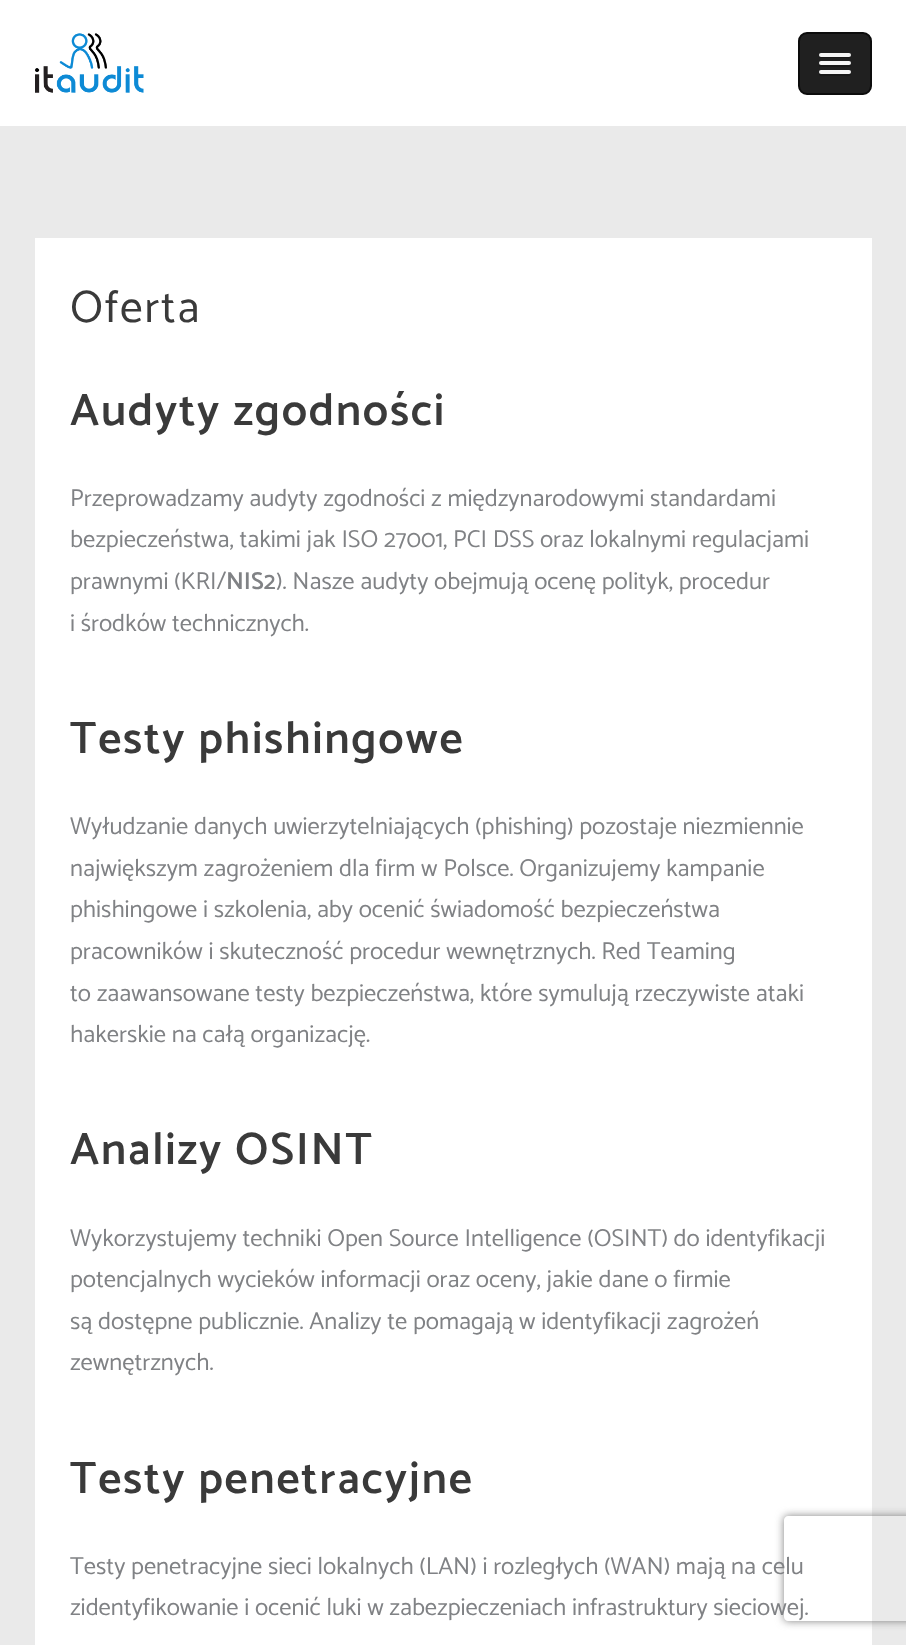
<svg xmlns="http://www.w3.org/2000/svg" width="906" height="1645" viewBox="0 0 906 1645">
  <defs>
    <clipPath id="clip1"><path d="M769 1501H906V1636H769ZM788 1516H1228C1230 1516 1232 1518 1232 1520V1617C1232 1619 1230 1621 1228 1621H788C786 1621 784 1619 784 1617V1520C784 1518 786 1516 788 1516Z" clip-rule="evenodd"/></clipPath>
  </defs>
  <rect width="100%" height="100%" fill="#eaeaea"/>
  <path d="M0 0h906v126H0z" fill="#fff"/>
  <image x="35" y="33" width="109" height="60" href="img/1.png"/>
  <rect x="799" y="33" width="72" height="61" rx="8" fill="#202020" stroke="#0c0c0c" stroke-width="2"/>
  <path d="M819 55C817.5 59 825 58 825.5 58H844.5C845.5 58 850.5 59 851 56.5C851 56 851 55 850.5 54.5C850.5 55.5 849.5 56 849 56H821C820 56 819.5 55.5 819 55Z" fill="#181818"/>
  <rect x="819" y="53" width="32" height="4" rx="2" fill="#f5f5f5"/>
  <path d="M819.5 64C817 68 825 67 825.5 67H835C837.5 67 849 67.5 850.5 66.5C851 65.5 851 64.5 850.5 63.5L849.5 64.5H820.5Z" fill="#181818"/>
  <rect x="819" y="61" width="32" height="4" rx="2" fill="#f5f5f5"/>
  <path d="M819.5 73L819 74.5C819.5 77 824.5 76 825.5 76H844.5C846 76 851 77 851 74L850.5 72.5C850 73 849.5 73.5 849 73.5H820.5Z" fill="#181818"/>
  <rect x="819" y="70" width="32" height="4" rx="2" fill="#f5f5f5"/>
  <path d="M35 238h837v1407H35z" fill="#fff"/>
  <g clip-path="url(#clip1)">
    <rect x="784" y="1516" width="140" height="105" rx="4" fill="#808080" filter="blur(4.5px)"/>
  </g>
  <text x="70" y="322" font-family="Catamaran" font-size="45.5" letter-spacing="1.75" fill="#3a3a3a">Oferta</text>
  <text x="70" y="425" font-family="Catamaran" font-size="45.5" font-weight="600" letter-spacing="1.75" fill="#3a3a3a">Audyty zgodności</text>
  <g font-family="Catamaran" font-size="24.5" fill="#808285">
    <text x="70" y="506">Przeprowadzamy audyty zgodności z międzynarodowymi standardami</text>
    <text x="70" y="547">bezpieczeństwa, takimi jak ISO 27001, PCI DSS oraz lokalnymi regulacjami</text>
    <text x="70" y="589">prawnymi (KRI/</text>
  </g>
  <text x="226" y="589" font-family="Catamaran" font-size="24.5" font-weight="600" fill="#808285">NIS2</text>
  <g font-family="Catamaran" font-size="24.5" fill="#808285">
    <text x="276" y="589">). Nasze audyty obejmują ocenę polityk, procedur</text>
    <text x="70" y="631">i środków technicznych.</text>
  </g>
  <text x="70" y="753" font-family="Catamaran" font-size="45.5" font-weight="600" letter-spacing="1.75" fill="#3a3a3a">Testy phishingowe</text>
  <g font-family="Catamaran" font-size="24.5" fill="#808285">
    <text x="70" y="834">Wyłudzanie danych uwierzytelniających (phishing) pozostaje niezmiennie</text>
    <text x="70" y="876">największym zagrożeniem dla firm w Polsce. Organizujemy kampanie</text>
    <text x="70" y="917">phishingowe i szkolenia, aby ocenić świadomość bezpieczeństwa</text>
    <text x="70" y="959">pracowników i skuteczność procedur wewnętrznych. Red Teaming</text>
    <text x="70" y="1001">to zaawansowane testy bezpieczeństwa, które symulują rzeczywiste ataki</text>
    <text x="70" y="1042">hakerskie na całą organizację.</text>
  </g>
  <text x="70" y="1164" font-family="Catamaran" font-size="45.5" font-weight="600" letter-spacing="1.75" fill="#3a3a3a">Analizy OSINT</text>
  <g font-family="Catamaran" font-size="24.5" fill="#808285">
    <text x="70" y="1246">Wykorzystujemy techniki Open Source Intelligence (OSINT) do identyfikacji</text>
    <text x="70" y="1287">potencjalnych wycieków informacji oraz oceny, jakie dane o firmie</text>
    <text x="70" y="1329">są dostępne publicznie. Analizy te pomagają w identyfikacji zagrożeń</text>
    <text x="70" y="1370">zewnętrznych.</text>
  </g>
  <text x="70" y="1493" font-family="Catamaran" font-size="45.5" font-weight="600" letter-spacing="1.75" fill="#3a3a3a">Testy penetracyjne</text>
  <g font-family="Catamaran" font-size="24.5" fill="#808285">
    <text x="70" y="1574">Testy penetracyjne sieci lokalnych (LAN) i rozległych (WAN) mają na celu</text>
    <text x="70" y="1615">zidentyfikowanie i ocenić luki w zabezpieczeniach infrastruktury sieciowej.</text>
  </g>
</svg>
